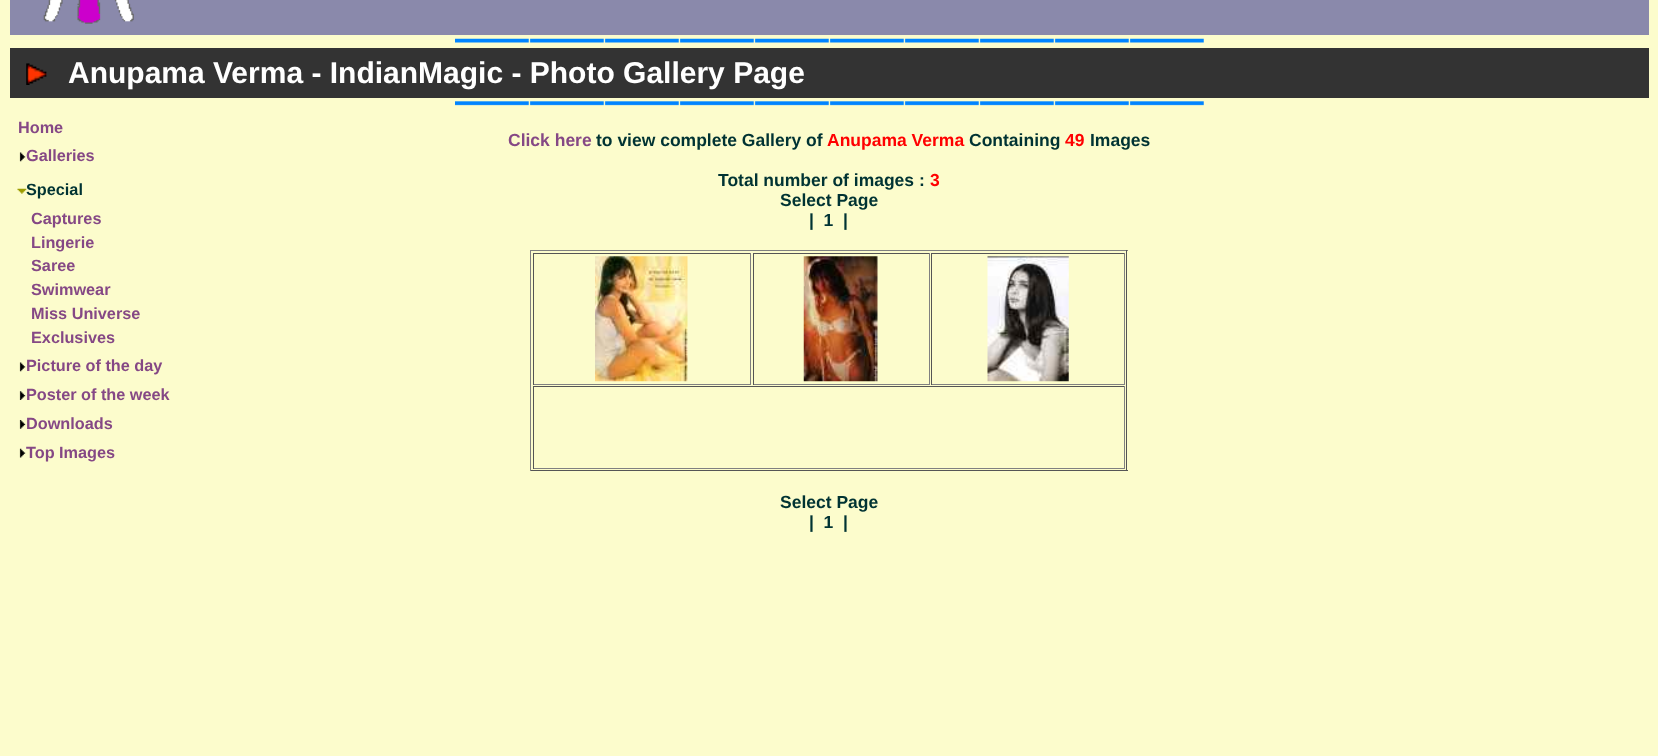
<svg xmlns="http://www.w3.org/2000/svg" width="1658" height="756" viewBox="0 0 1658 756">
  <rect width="100%" height="100%" fill="#fcfccc"/>
  <path d="M10 0h1639v35H10z" fill="#8a89ab"/>
  <image x="43" y="0" width="91" height="24" href="img/1.png"/>
  <image x="455" y="38" width="749" height="5" href="img/2.png"/>
  <path d="M10 48h1639v50H10z" fill="#333"/>
  <image x="26" y="63" width="21" height="22" href="img/3.png"/>
  <image x="455" y="101" width="749" height="5" href="img/4.png"/>
  <image x="19" y="152" width="7" height="10" href="img/5.png"/>
  <image x="17" y="188" width="10" height="6" href="img/6.png"/>
  <image x="19" y="362" width="7" height="10" href="img/5.png"/>
  <image x="19" y="391" width="7" height="9" href="img/7.png"/>
  <image x="19" y="420" width="7" height="9" href="img/8.png"/>
  <image x="19" y="448" width="7" height="10" href="img/9.png"/>
  <path d="M530 250h598v1H530z" fill="#808080"/>
  <path d="M1126 250h1v221H1126z" fill="#555"/>
  <path d="M530 470h598v1H530z" fill="#555"/>
  <path d="M530 250h1v221H530z" fill="#808080"/>
  <path d="M533 253h218v1H533z" fill="#555"/>
  <path d="M750 253h1v132H750z" fill="#808080"/>
  <path d="M533 384h218v1H533z" fill="#808080"/>
  <path d="M533 253h1v132H533z" fill="#555"/>
  <image x="595" y="256" width="93" height="126" href="img/10.png"/>
  <path d="M753 253h177v1H753z" fill="#555"/>
  <path d="M929 253h1v132H929z" fill="#808080"/>
  <path d="M753 384h177v1H753z" fill="#808080"/>
  <path d="M753 253h1v132H753z" fill="#555"/>
  <image x="803" y="256" width="75" height="126" href="img/11.png"/>
  <path d="M931 253h194v1H931z" fill="#555"/>
  <path d="M1124 253h1v132H1124z" fill="#808080"/>
  <path d="M931 384h194v1H931z" fill="#808080"/>
  <path d="M931 253h1v132H931z" fill="#555"/>
  <image x="987" y="256" width="82" height="126" href="img/12.png"/>
  <path d="M533 386h592v1H533z" fill="#555"/>
  <path d="M1124 386h1v83H1124z" fill="#808080"/>
  <path d="M533 468h592v1H533z" fill="#808080"/>
  <path d="M533 386h1v83H533z" fill="#555"/>
  <text x="68" y="83" font-family="Liberation Sans" font-size="30" font-weight="bold" fill="#fff">Anupama Verma - IndianMagic - Photo Gallery Page</text>
  <g font-family="Liberation Sans" font-size="16.25" font-weight="bold" fill="#854885">
    <text x="18" y="133">Home</text>
    <text x="26" y="161">Galleries</text>
  </g>
  <text x="26" y="195" font-family="Liberation Sans" font-size="16.25" font-weight="bold" fill="#033">Special</text>
  <g font-family="Liberation Sans" font-size="16.25" font-weight="bold" fill="#854885">
    <text x="31" y="224">Captures</text>
    <text x="31" y="248">Lingerie</text>
    <text x="31" y="271">Saree</text>
    <text x="31" y="295">Swimwear</text>
    <text x="31" y="319">Miss Universe</text>
    <text x="31" y="343">Exclusives</text>
    <text x="26" y="371">Picture of the day</text>
    <text x="26" y="400">Poster of the week</text>
    <text x="26" y="429">Downloads</text>
    <text x="26" y="458">Top Images</text>
  </g>
  <text x="508" y="146" font-family="Liberation Sans" font-size="17.5" font-weight="bold" fill="#854885">Click here</text>
  <text x="596" y="146" font-family="Liberation Sans" font-size="17.5" font-weight="bold" fill="#033">to view complete Gallery of</text>
  <text x="827" y="146" font-family="Liberation Sans" font-size="17.5" font-weight="bold" fill="#f00">Anupama Verma</text>
  <text x="969" y="146" font-family="Liberation Sans" font-size="17.5" font-weight="bold" fill="#033">Containing</text>
  <text x="1065" y="146" font-family="Liberation Sans" font-size="17.5" font-weight="bold" fill="#f00">49</text>
  <g font-family="Liberation Sans" font-size="17.5" font-weight="bold" fill="#033">
    <text x="1090" y="146">Images</text>
    <text x="718" y="186">Total number of images :</text>
  </g>
  <text x="930" y="186" font-family="Liberation Sans" font-size="17.5" font-weight="bold" fill="#f00">3</text>
  <g font-family="Liberation Sans" font-size="17.5" font-weight="bold" fill="#033">
    <text x="780" y="206">Select Page</text>
    <text x="809" y="226" xml:space="preserve">|  1  |</text>
    <text x="780" y="508">Select Page</text>
    <text x="809" y="528" xml:space="preserve">|  1  |</text>
  </g>
</svg>
